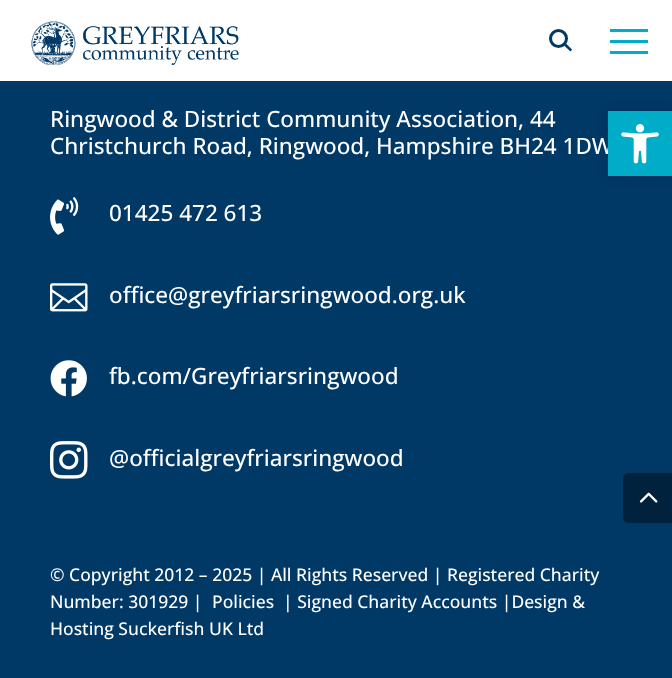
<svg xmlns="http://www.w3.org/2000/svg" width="672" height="678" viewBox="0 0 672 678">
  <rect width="100%" height="100%" fill="#003866"/>
  <path d="M0 0h672v81H0z" fill="#fff"/>
  <image x="31" y="21" width="208" height="44" href="img/1.png"/>
  <circle cx="558.5" cy="38.5" r="8" fill="none" stroke="#003866" stroke-width="3"/>
  <path d="M566 43.5L572 49.5L570.5 51.5L564 45.5Z" fill="#003866"/>
  <path d="M610 29h38v3H610z" fill="#00acc7"/>
  <path d="M610 40h38v3H610z" fill="#00acc7"/>
  <path d="M610 51h38v3H610z" fill="#00acc7"/>
  <image x="50" y="197" width="29" height="38" href="img/2.png"/>
  <image x="50" y="283" width="38" height="29" href="img/3.png"/>
  <image x="50" y="360" width="37" height="37" href="img/4.png"/>
  <image x="50" y="441" width="38" height="38" href="img/5.png"/>
  <path d="M608 111h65v65H608z" fill="#0000001a" filter="blur(6px)"/>
  <path d="M629 473H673V523H629C625.5 523 623 520.5 623 517V479C623 475.5 625.5 473 629 473Z" fill="#00223d"/>
  <image x="639" y="492" width="19" height="11" href="img/7.png"/>
  <g font-family="Open Sans" font-size="22.5" font-weight="500" fill="#fff">
    <text x="50" y="127">Ringwood &amp; District Community Association, 44</text>
    <text x="50" y="154">Christchurch Road, Ringwood, Hampshire BH24 1DW</text>
    <text x="109" y="221">01425 472 613</text>
    <text x="109" y="303">office@greyfriarsringwood.org.uk</text>
    <text x="109" y="384">fb.com/Greyfriarsringwood</text>
    <text x="109" y="466">@officialgreyfriarsringwood</text>
  </g>
  <g font-family="Open Sans" font-size="17.5" font-weight="500" fill="#fff">
    <text x="50" y="581">© Copyright 2012 – 2025 | All Rights Reserved | Registered Charity</text>
    <text x="50" y="608">Number: 301929 |</text>
    <text x="212" y="608">Policies</text>
    <text x="283" y="608">| Signed Charity Accounts |Design &amp;</text>
    <text x="50" y="635">Hosting Suckerfish UK Ltd</text>
  </g>
  <path d="M608 111h64v65H608z" fill="#00acc7"/>
  <image x="621" y="124" width="38" height="40" href="img/6.png"/>
</svg>
